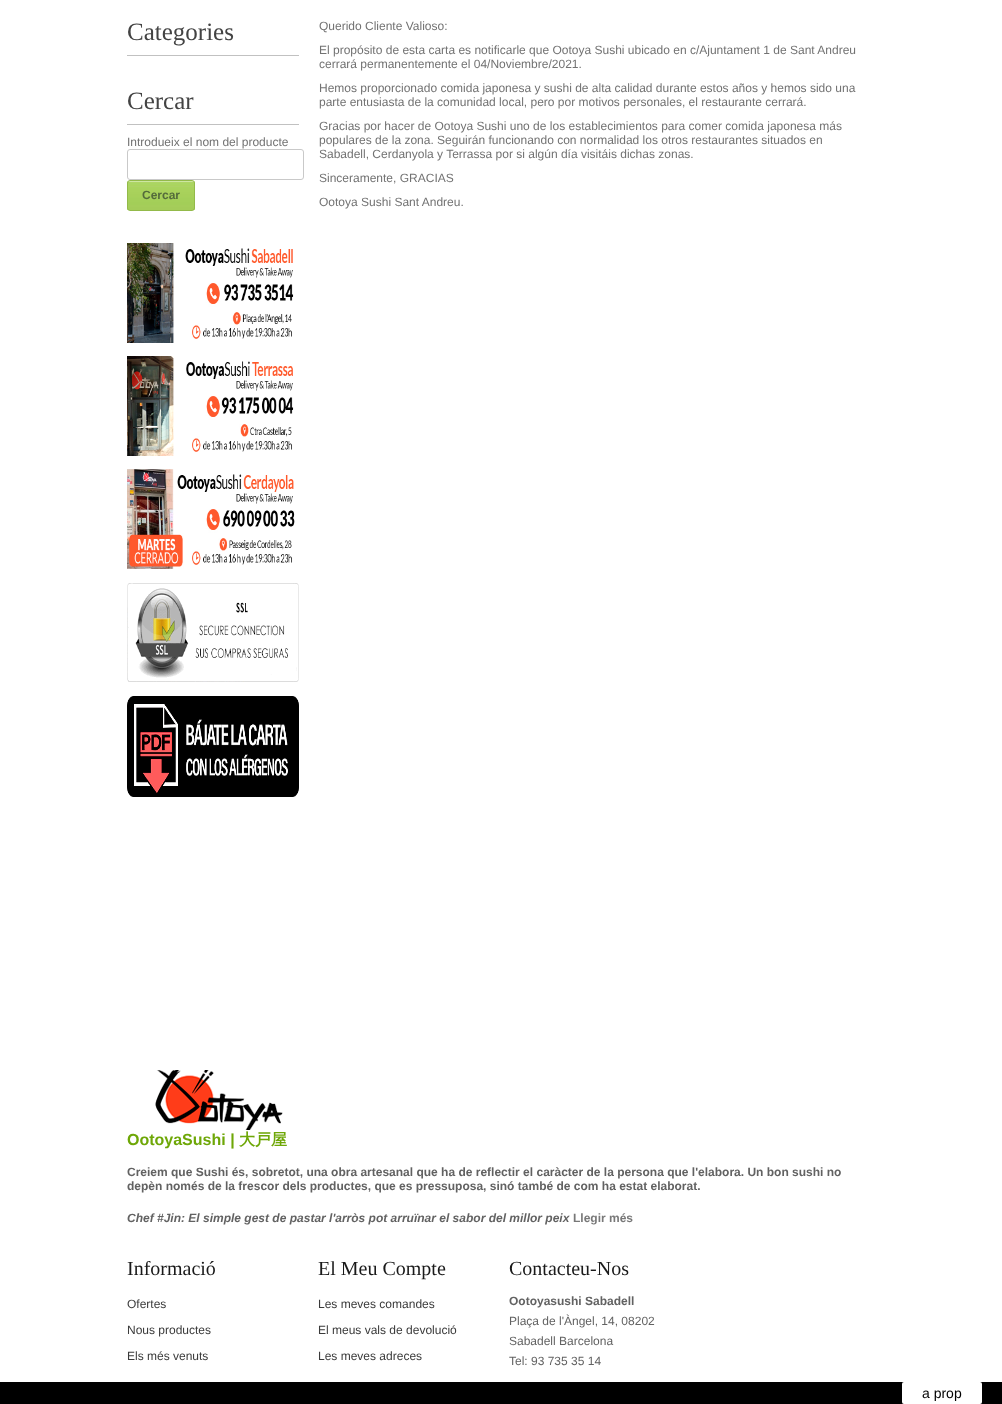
<svg xmlns="http://www.w3.org/2000/svg" width="1002" height="1404" viewBox="0 0 1002 1404">
  <rect width="100%" height="100%" fill="#fff"/>
  <path d="M127 55h172v1H127z" fill="#c1c1c1"/>
  <path d="M127 124h172v1H127z" fill="#c1c1c1"/>
  <rect x="127.5" y="149.5" width="176" height="30" rx="2.5" fill="none" stroke="#c9c9c9"/>
  <image x="127" y="181" width="68" height="29" href="img/1.png"/>
  <rect x="127.5" y="180.5" width="67" height="30" rx="2.5" fill="none" stroke="#93ba4a"/>
  <image x="127" y="243" width="167" height="100" href="img/2.png"/>
  <image x="127" y="356" width="167" height="100" href="img/3.png"/>
  <image x="127" y="469" width="168" height="100" href="img/4.png"/>
  <image x="127" y="583" width="172" height="99" href="img/5.png"/>
  <image x="127" y="696" width="172" height="101" href="img/6.png"/>
  <image x="155" y="1070" width="128" height="60" href="img/7.png"/>
  <path d="M0 1382h1002v22H0z" fill="#000"/>
  <rect x="902" y="1382" width="80" height="22" rx="2" fill="#fff"/>
  <g font-family="Liberation Serif" font-size="25" fill="#434343">
    <text x="127" y="40">Categories</text>
    <text x="127" y="109">Cercar</text>
  </g>
  <text x="127" y="146" font-family="Liberation Sans" font-size="12" fill="#727272">Introdueix el nom del producte</text>
  <text x="142" y="199" font-family="Liberation Sans" font-size="12" font-weight="bold" fill="#546b3b">Cercar</text>
  <g font-family="Liberation Sans" font-size="12" fill="#727272">
    <text x="319" y="30">Querido Cliente Valioso:</text>
    <text x="319" y="54">El propósito de esta carta es notificarle que Ootoya Sushi ubicado en c/Ajuntament 1 de Sant Andreu</text>
    <text x="319" y="68">cerrará permanentemente el 04/Noviembre/2021.</text>
    <text x="319" y="92">Hemos proporcionado comida japonesa y sushi de alta calidad durante estos años y hemos sido una</text>
    <text x="319" y="106">parte entusiasta de la comunidad local, pero por motivos personales, el restaurante cerrará.</text>
    <text x="319" y="130">Gracias por hacer de Ootoya Sushi uno de los establecimientos para comer comida japonesa más</text>
    <text x="319" y="144">populares de la zona. Seguirán funcionando con normalidad los otros restaurantes situados en</text>
    <text x="319" y="158">Sabadell, Cerdanyola y Terrassa por si algún día visitáis dichas zonas.</text>
    <text x="319" y="182">Sinceramente, GRACIAS</text>
    <text x="319" y="206">Ootoya Sushi Sant Andreu.</text>
  </g>
  <text x="127" y="1145" font-family="Liberation Sans" font-size="16" font-weight="bold" fill="#6ea707">OotoyaSushi |</text>
  <text x="239" y="1145" font-family="WenQuanYi Zen Hei" font-size="16" font-weight="bold" fill="#6ea707">大戸屋</text>
  <g font-family="Liberation Sans" font-size="12" font-weight="bold" fill="#626262">
    <text x="127" y="1176">Creiem que Sushi és, sobretot, una obra artesanal que ha de reflectir el caràcter de la persona que l'elabora. Un bon sushi no</text>
    <text x="127" y="1190">depèn només de la frescor dels productes, que es pressuposa, sinó també de com ha estat elaborat.</text>
  </g>
  <text x="127" y="1222" font-family="Liberation Sans" font-size="12" font-weight="bold" font-style="italic" fill="#626262">Chef #Jin: El simple gest de pastar l'arròs pot arruïnar el sabor del millor peix</text>
  <text x="573" y="1222" font-family="Liberation Sans" font-size="12" font-weight="bold" fill="#787878">Llegir més</text>
  <text x="127" y="1275" font-family="Liberation Serif" font-size="20" fill="#1a1a1a">Informació</text>
  <g font-family="Liberation Sans" font-size="12" fill="#3a3a3a">
    <text x="127" y="1308">Ofertes</text>
    <text x="127" y="1334">Nous productes</text>
    <text x="127" y="1360">Els més venuts</text>
  </g>
  <text x="318" y="1275" font-family="Liberation Serif" font-size="20" fill="#1a1a1a">El Meu Compte</text>
  <g font-family="Liberation Sans" font-size="12" fill="#3a3a3a">
    <text x="318" y="1308">Les meves comandes</text>
    <text x="318" y="1334">El meus vals de devolució</text>
    <text x="318" y="1360">Les meves adreces</text>
  </g>
  <text x="509" y="1275" font-family="Liberation Serif" font-size="20" fill="#1a1a1a">Contacteu-Nos</text>
  <text x="509" y="1305" font-family="Liberation Sans" font-size="12" font-weight="bold" fill="#626262">Ootoyasushi Sabadell</text>
  <g font-family="Liberation Sans" font-size="12" fill="#626262">
    <text x="509" y="1325">Plaça de l'Àngel, 14, 08202</text>
    <text x="509" y="1345">Sabadell Barcelona</text>
    <text x="509" y="1365">Tel: 93 735 35 14</text>
  </g>
  <text x="922" y="1398" font-family="Liberation Sans" font-size="14" fill="#000">a prop</text>
</svg>
